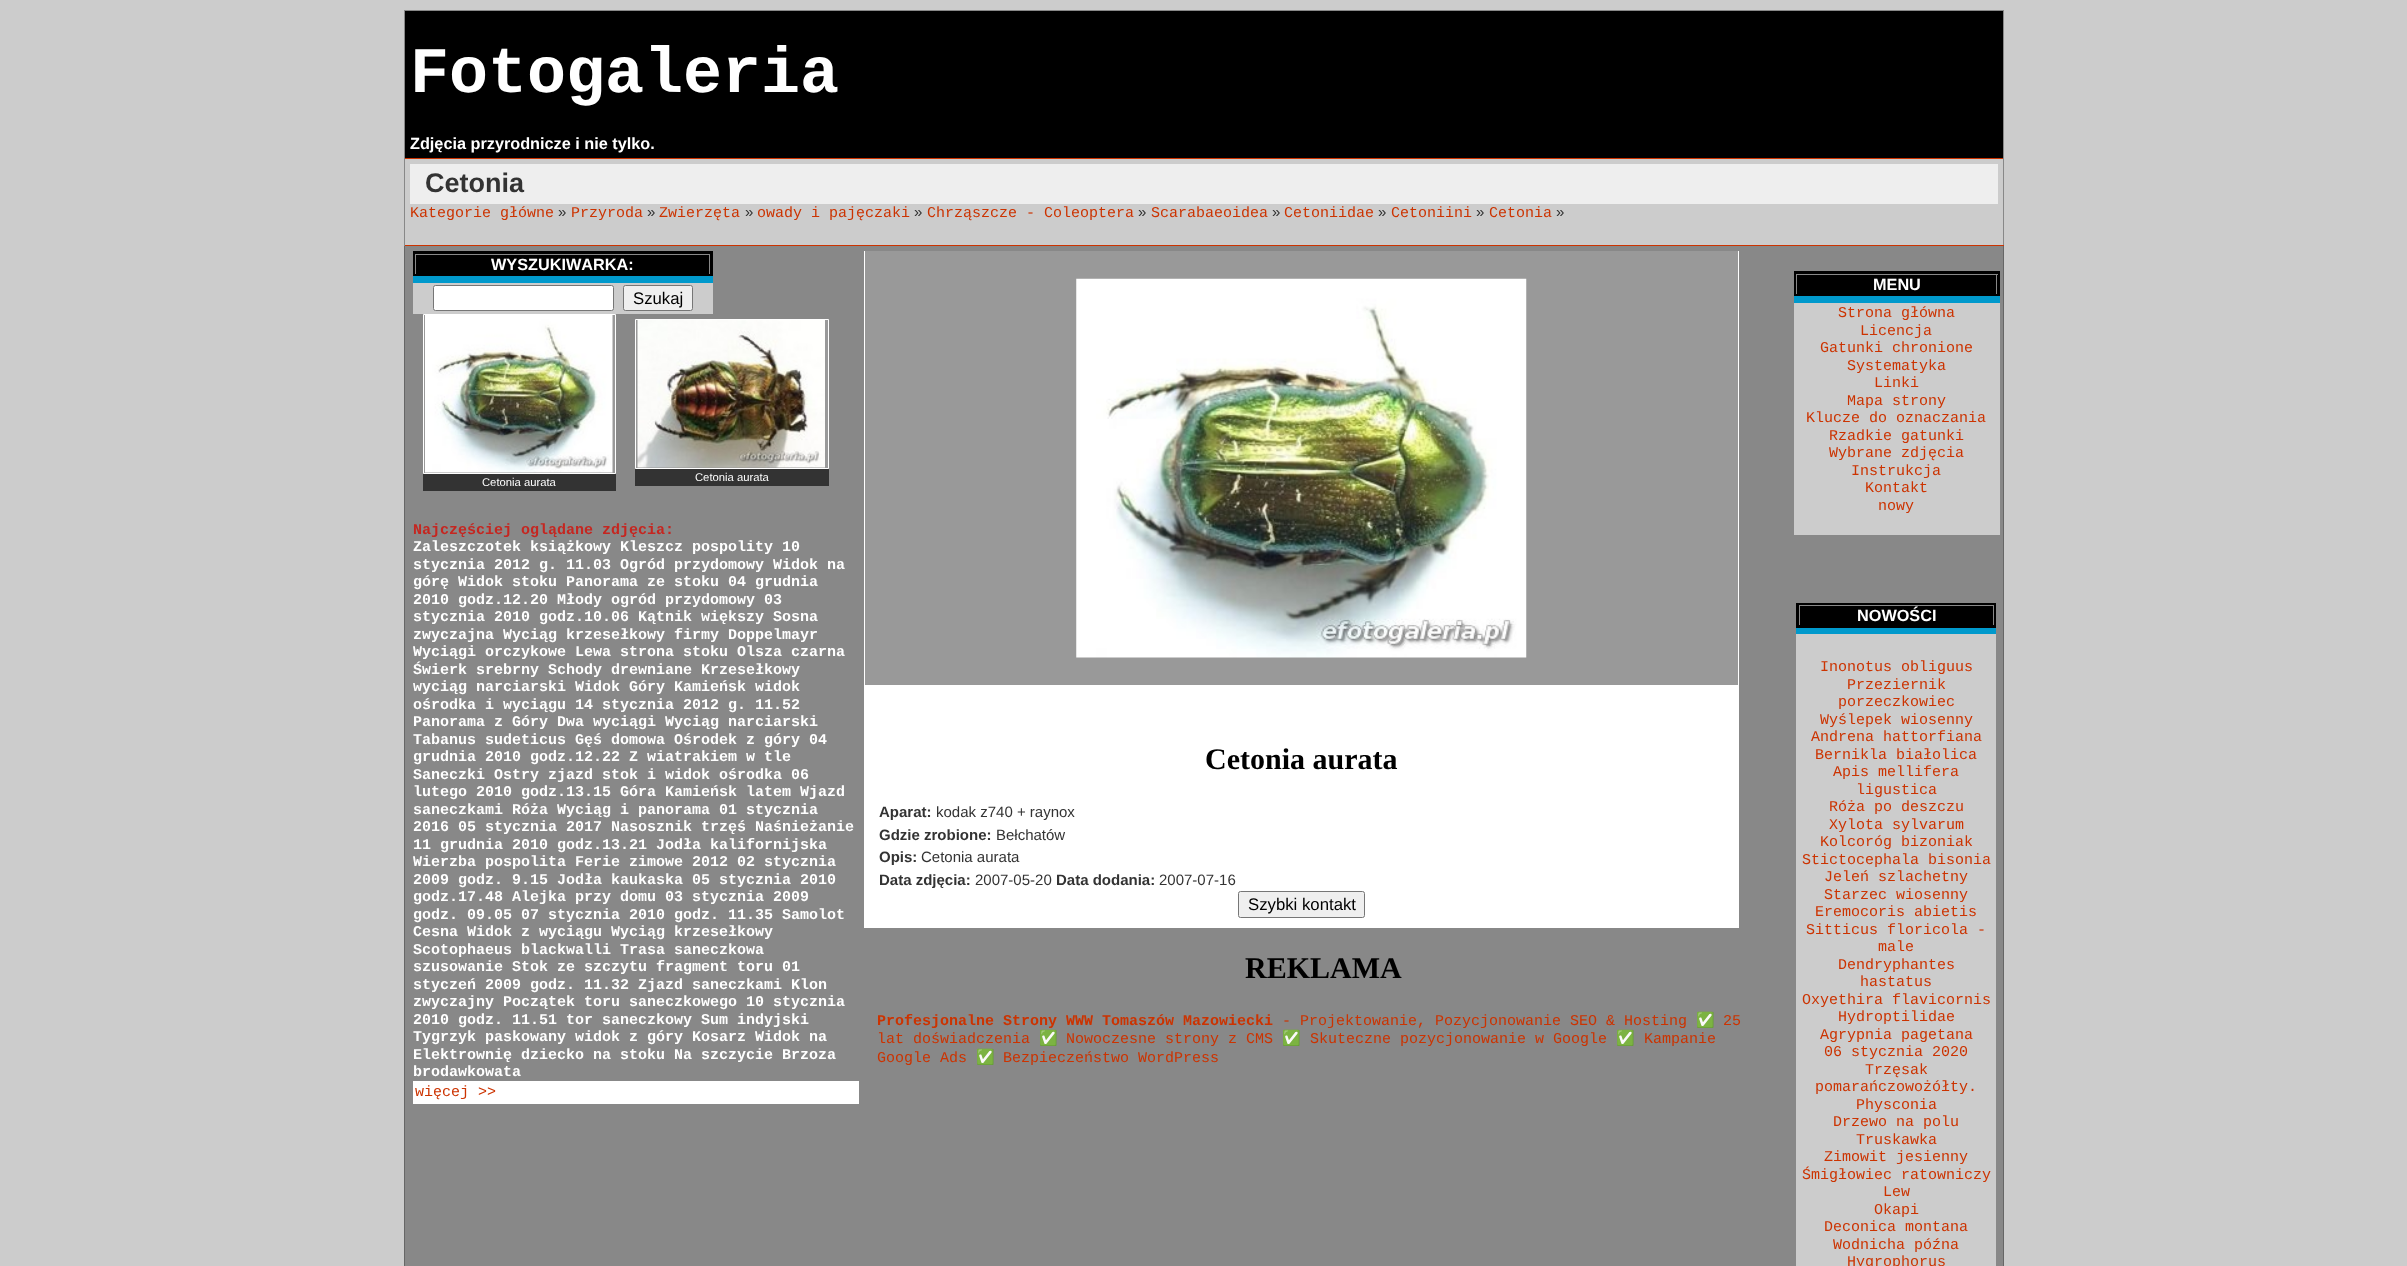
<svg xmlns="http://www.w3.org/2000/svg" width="2407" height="1266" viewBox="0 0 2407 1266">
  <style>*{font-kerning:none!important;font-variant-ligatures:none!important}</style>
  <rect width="100%" height="100%" fill="#ccc"/>
  <path d="M405 11h1598v147H405z" fill="#000"/>
  <path d="M404 10h1600v1H404z" fill="#888"/>
  <path d="M2003 10h1v148H2003z" fill="#888"/>
  <path d="M404 10h1v148H404z" fill="#888"/>
  <path d="M404 158h1600v1H404z" fill="#c30"/>
  <path d="M2003 158h1v88H2003z" fill="#888"/>
  <path d="M404 245h1600v1H404z" fill="#c30"/>
  <path d="M404 158h1v88H404z" fill="#888"/>
  <path d="M410 164h1588v40H410z" fill="#eee"/>
  <path d="M405 246h1598v1020H405z" fill="#888"/>
  <path d="M2003 246h1v1020H2003z" fill="#666"/>
  <path d="M404 246h1v1020H404z" fill="#666"/>
  <path d="M413 251h300v25H413z" fill="#000"/>
  <path d="M415 254h295v1H415z" fill="#888"/>
  <path d="M709 254h1v20H709z" fill="#888"/>
  <path d="M415 254h1v20H415z" fill="#888"/>
  <path d="M413 276h300v7H413z" fill="#09c"/>
  <path d="M413 283h300v31H413z" fill="#ccc"/>
  <rect x="433.5" y="285.5" width="180" height="25" rx="2" fill="#fff" stroke="#767676"/>
  <rect x="623.5" y="285.5" width="69" height="25" rx="2" fill="#efefef" stroke="#767676"/>
  <path d="M423.5 314.5h192v159H423.5z" fill="#999" stroke="#fff"/>
  <image x="425" y="315" width="188" height="158" href="img/1.png"/>
  <path d="M423 474h193v17H423z" fill="#333"/>
  <path d="M635.5 319.5h193v149H635.5z" fill="#999" stroke="#fff"/>
  <image x="637" y="320" width="188" height="148" href="img/2.png"/>
  <path d="M635 469h194v17H635z" fill="#333"/>
  <path d="M413 1081h446v23H413z" fill="#fff"/>
  <path d="M1738 251h1v677H1738z" fill="#fff"/>
  <path d="M864 251h1v677H864z" fill="#fff"/>
  <path d="M865 251h873v434H865z" fill="#999"/>
  <image x="1076" y="278" width="451" height="380" href="img/3.png"/>
  <path d="M865 685h873v243H865z" fill="#fff"/>
  <rect x="1238.5" y="891.5" width="126" height="26" rx="2" fill="#efefef" stroke="#767676"/>
  <path d="M1794 271h206v25H1794z" fill="#000"/>
  <path d="M1796 274h202v1H1796z" fill="#888"/>
  <path d="M1996 274h1v20H1996z" fill="#888"/>
  <path d="M1796 274h1v20H1796z" fill="#888"/>
  <path d="M1794 296h206v7H1794z" fill="#09c"/>
  <path d="M1794 303h206v232H1794z" fill="#ccc"/>
  <path d="M1796 603h200v25H1796z" fill="#000"/>
  <path d="M1799 605h195v1H1799z" fill="#888"/>
  <path d="M1993 605h1v20H1993z" fill="#888"/>
  <path d="M1799 605h1v20H1799z" fill="#888"/>
  <path d="M1796 628h200v6H1796z" fill="#09c"/>
  <path d="M1796 634h200v632H1796z" fill="#ccc"/>
  <text x="410" y="92" font-family="Liberation Mono" font-size="65" font-weight="bold" fill="#fff">Fotogaleria</text>
  <text x="410" y="149" font-family="Liberation Sans" font-size="16.25" font-weight="bold" fill="#fff">Zdjęcia przyrodnicze i nie tylko.</text>
  <text x="425" y="192" font-family="Liberation Sans" font-size="27" font-weight="bold" fill="#333">Cetonia</text>
  <text x="410" y="217" font-family="Liberation Mono" font-size="15" fill="#c30">Kategorie główne</text>
  <text x="558" y="217" font-family="Liberation Sans" font-size="15" fill="#333">»</text>
  <text x="571" y="217" font-family="Liberation Mono" font-size="15" fill="#c30">Przyroda</text>
  <text x="647" y="217" font-family="Liberation Sans" font-size="15" fill="#333">»</text>
  <text x="659" y="217" font-family="Liberation Mono" font-size="15" fill="#c30">Zwierzęta</text>
  <text x="745" y="217" font-family="Liberation Sans" font-size="15" fill="#333">»</text>
  <text x="757" y="217" font-family="Liberation Mono" font-size="15" fill="#c30">owady i pajęczaki</text>
  <text x="914" y="217" font-family="Liberation Sans" font-size="15" fill="#333">»</text>
  <text x="927" y="217" font-family="Liberation Mono" font-size="15" fill="#c30">Chrząszcze - Coleoptera</text>
  <text x="1138" y="217" font-family="Liberation Sans" font-size="15" fill="#333">»</text>
  <text x="1151" y="217" font-family="Liberation Mono" font-size="15" fill="#c30">Scarabaeoidea</text>
  <text x="1272" y="217" font-family="Liberation Sans" font-size="15" fill="#333">»</text>
  <text x="1284" y="217" font-family="Liberation Mono" font-size="15" fill="#c30">Cetoniidae</text>
  <text x="1378" y="217" font-family="Liberation Sans" font-size="15" fill="#333">»</text>
  <text x="1391" y="217" font-family="Liberation Mono" font-size="15" fill="#c30">Cetoniini</text>
  <text x="1476" y="217" font-family="Liberation Sans" font-size="15" fill="#333">»</text>
  <text x="1489" y="217" font-family="Liberation Mono" font-size="15" fill="#c30">Cetonia</text>
  <text x="1556" y="217" font-family="Liberation Sans" font-size="15" fill="#333">»</text>
  <text x="491" y="270" font-family="Liberation Sans" font-size="16.25" font-weight="bold" fill="#fff">WYSZUKIWARKA:</text>
  <text x="633" y="304" font-family="Liberation Sans" font-size="16.75" fill="#000">Szukaj</text>
  <g font-family="Liberation Sans" font-size="11.25" fill="#fff">
    <text x="482" y="486">Cetonia aurata</text>
    <text x="695" y="481">Cetonia aurata</text>
  </g>
  <text x="413" y="534" font-family="Liberation Mono" font-size="15" font-weight="bold" fill="#c52620">Najczęściej oglądane zdjęcia:</text>
  <g font-family="Liberation Mono" font-size="15" font-weight="bold" fill="#fff">
    <text x="413" y="551">Zaleszczotek książkowy Kleszcz pospolity 10</text>
    <text x="413" y="569">stycznia 2012 g. 11.03 Ogród przydomowy Widok na</text>
    <text x="413" y="586">górę Widok stoku Panorama ze stoku 04 grudnia</text>
    <text x="413" y="604">2010 godz.12.20 Młody ogród przydomowy 03</text>
    <text x="413" y="621">stycznia 2010 godz.10.06 Kątnik większy Sosna</text>
    <text x="413" y="639">zwyczajna Wyciąg krzesełkowy firmy Doppelmayr</text>
    <text x="413" y="656">Wyciągi orczykowe Lewa strona stoku Olsza czarna</text>
    <text x="413" y="674">Świerk srebrny Schody drewniane Krzesełkowy</text>
    <text x="413" y="691">wyciąg narciarski Widok Góry Kamieńsk widok</text>
    <text x="413" y="709">ośrodka i wyciągu 14 stycznia 2012 g. 11.52</text>
    <text x="413" y="726">Panorama z Góry Dwa wyciągi Wyciąg narciarski</text>
    <text x="413" y="744">Tabanus sudeticus Gęś domowa Ośrodek z góry 04</text>
    <text x="413" y="761">grudnia 2010 godz.12.22 Z wiatrakiem w tle</text>
    <text x="413" y="779">Saneczki Ostry zjazd stok i widok ośrodka 06</text>
    <text x="413" y="796">lutego 2010 godz.13.15 Góra Kamieńsk latem Wjazd</text>
    <text x="413" y="814">saneczkami Róża Wyciąg i panorama 01 stycznia</text>
    <text x="413" y="831">2016 05 stycznia 2017 Nasosznik trzęś Naśnieżanie</text>
    <text x="413" y="849">11 grudnia 2010 godz.13.21 Jodła kalifornijska</text>
    <text x="413" y="866">Wierzba pospolita Ferie zimowe 2012 02 stycznia</text>
    <text x="413" y="884">2009 godz. 9.15 Jodła kaukaska 05 stycznia 2010</text>
    <text x="413" y="901">godz.17.48 Alejka przy domu 03 stycznia 2009</text>
    <text x="413" y="919">godz. 09.05 07 stycznia 2010 godz. 11.35 Samolot</text>
    <text x="413" y="936">Cesna Widok z wyciągu Wyciąg krzesełkowy</text>
    <text x="413" y="954">Scotophaeus blackwalli Trasa saneczkowa</text>
    <text x="413" y="971">szusowanie Stok ze szczytu fragment toru 01</text>
    <text x="413" y="989">styczeń 2009 godz. 11.32 Zjazd saneczkami Klon</text>
    <text x="413" y="1006">zwyczajny Początek toru saneczkowego 10 stycznia</text>
    <text x="413" y="1024">2010 godz. 11.51 tor saneczkowy Sum indyjski</text>
    <text x="413" y="1041">Tygrzyk paskowany widok z góry Kosarz Widok na</text>
    <text x="413" y="1059">Elektrownię dziecko na stoku Na szczycie Brzoza</text>
    <text x="413" y="1076">brodawkowata</text>
  </g>
  <text x="415" y="1096" font-family="Liberation Mono" font-size="15" fill="#c30">więcej &gt;&gt;</text>
  <text x="1205" y="769" font-family="Liberation Serif" font-size="30" font-weight="bold" fill="#000">Cetonia aurata</text>
  <text x="879" y="817" font-family="Liberation Sans" font-size="15" font-weight="bold" fill="#333">Aparat:</text>
  <text x="936" y="817" font-family="Liberation Sans" font-size="15" fill="#333">kodak z740 + raynox</text>
  <text x="879" y="840" font-family="Liberation Sans" font-size="15" font-weight="bold" fill="#333">Gdzie zrobione:</text>
  <text x="996" y="840" font-family="Liberation Sans" font-size="15" fill="#333">Bełchatów</text>
  <text x="879" y="862" font-family="Liberation Sans" font-size="15" font-weight="bold" fill="#333">Opis:</text>
  <text x="921" y="862" font-family="Liberation Sans" font-size="15" fill="#333">Cetonia aurata</text>
  <text x="879" y="885" font-family="Liberation Sans" font-size="15" font-weight="bold" fill="#333">Data zdjęcia:</text>
  <text x="975" y="885" font-family="Liberation Sans" font-size="15" fill="#333">2007-05-20</text>
  <text x="1056" y="885" font-family="Liberation Sans" font-size="15" font-weight="bold" fill="#333">Data dodania:</text>
  <text x="1159" y="885" font-family="Liberation Sans" font-size="15" fill="#333">2007-07-16</text>
  <text x="1248" y="910" font-family="Liberation Sans" font-size="16.75" fill="#000">Szybki kontakt</text>
  <text x="1245" y="978" font-family="Liberation Serif" font-size="30" font-weight="bold" fill="#000">REKLAMA</text>
  <text x="877" y="1025" font-family="Liberation Mono" font-size="15" font-weight="bold" fill="#c30">Profesjonalne Strony WWW Tomaszów Mazowiecki</text>
  <text x="1282" y="1025" font-family="Liberation Mono" font-size="15" fill="#c30">- Projektowanie, Pozycjonowanie SEO &amp; Hosting</text>
  <text x="1696" y="1025" font-family="Noto Color Emoji" font-size="15" fill="#c30">✅</text>
  <g font-family="Liberation Mono" font-size="15" fill="#c30">
    <text x="1723" y="1025">25</text>
    <text x="877" y="1043">lat doświadczenia</text>
  </g>
  <text x="1039" y="1043" font-family="Noto Color Emoji" font-size="15" fill="#c30">✅</text>
  <text x="1066" y="1043" font-family="Liberation Mono" font-size="15" fill="#c30">Nowoczesne strony z CMS</text>
  <text x="1282" y="1043" font-family="Noto Color Emoji" font-size="15" fill="#c30">✅</text>
  <text x="1310" y="1043" font-family="Liberation Mono" font-size="15" fill="#c30">Skuteczne pozycjonowanie w Google</text>
  <text x="1616" y="1043" font-family="Noto Color Emoji" font-size="15" fill="#c30">✅</text>
  <g font-family="Liberation Mono" font-size="15" fill="#c30">
    <text x="1644" y="1043">Kampanie</text>
    <text x="877" y="1062">Google Ads</text>
  </g>
  <text x="976" y="1062" font-family="Noto Color Emoji" font-size="15" fill="#c30">✅</text>
  <text x="1003" y="1062" font-family="Liberation Mono" font-size="15" fill="#c30">Bezpieczeństwo WordPress</text>
  <text x="1873" y="290" font-family="Liberation Sans" font-size="16.25" font-weight="bold" fill="#fff">MENU</text>
  <g font-family="Liberation Mono" font-size="15" fill="#c30">
    <text x="1838" y="317">Strona główna</text>
    <text x="1860" y="335">Licencja</text>
    <text x="1820" y="352">Gatunki chronione</text>
    <text x="1847" y="370">Systematyka</text>
    <text x="1874" y="387">Linki</text>
    <text x="1847" y="405">Mapa strony</text>
    <text x="1806" y="422">Klucze do oznaczania</text>
    <text x="1829" y="440">Rzadkie gatunki</text>
    <text x="1829" y="457">Wybrane zdjęcia</text>
    <text x="1851" y="475">Instrukcja</text>
    <text x="1865" y="492">Kontakt</text>
    <text x="1878" y="510">nowy</text>
  </g>
  <text x="1857" y="621" font-family="Liberation Sans" font-size="16.25" font-weight="bold" fill="#fff">NOWOŚCI</text>
  <g font-family="Liberation Mono" font-size="15" fill="#c30">
    <text x="1820" y="671">Inonotus obliguus</text>
    <text x="1847" y="689">Przeziernik</text>
    <text x="1838" y="706">porzeczkowiec</text>
    <text x="1820" y="724">Wyślepek wiosenny</text>
    <text x="1811" y="741">Andrena hattorfiana</text>
    <text x="1815" y="759">Bernikla białolica</text>
    <text x="1833" y="776">Apis mellifera</text>
    <text x="1856" y="794">ligustica</text>
    <text x="1829" y="811">Róża po deszczu</text>
    <text x="1829" y="829">Xylota sylvarum</text>
    <text x="1820" y="846">Kolcoróg bizoniak</text>
    <text x="1802" y="864">Stictocephala bisonia</text>
    <text x="1824" y="881">Jeleń szlachetny</text>
    <text x="1824" y="899">Starzec wiosenny</text>
    <text x="1815" y="916">Eremocoris abietis</text>
    <text x="1806" y="934">Sitticus floricola -</text>
    <text x="1878" y="951">male</text>
    <text x="1838" y="969">Dendryphantes</text>
    <text x="1860" y="986">hastatus</text>
    <text x="1802" y="1004">Oxyethira flavicornis</text>
    <text x="1838" y="1021">Hydroptilidae</text>
    <text x="1820" y="1039">Agrypnia pagetana</text>
    <text x="1824" y="1056">06 stycznia 2020</text>
    <text x="1865" y="1074">Trzęsak</text>
    <text x="1815" y="1091">pomarańczowożółty.</text>
    <text x="1856" y="1109">Physconia</text>
    <text x="1833" y="1126">Drzewo na polu</text>
    <text x="1856" y="1144">Truskawka</text>
    <text x="1824" y="1161">Zimowit jesienny</text>
    <text x="1802" y="1179">Śmigłowiec ratowniczy</text>
    <text x="1883" y="1196">Lew</text>
    <text x="1874" y="1214">Okapi</text>
    <text x="1824" y="1231">Deconica montana</text>
    <text x="1833" y="1249">Wodnicha późna</text>
    <text x="1847" y="1266">Hygrophorus</text>
  </g>
</svg>
